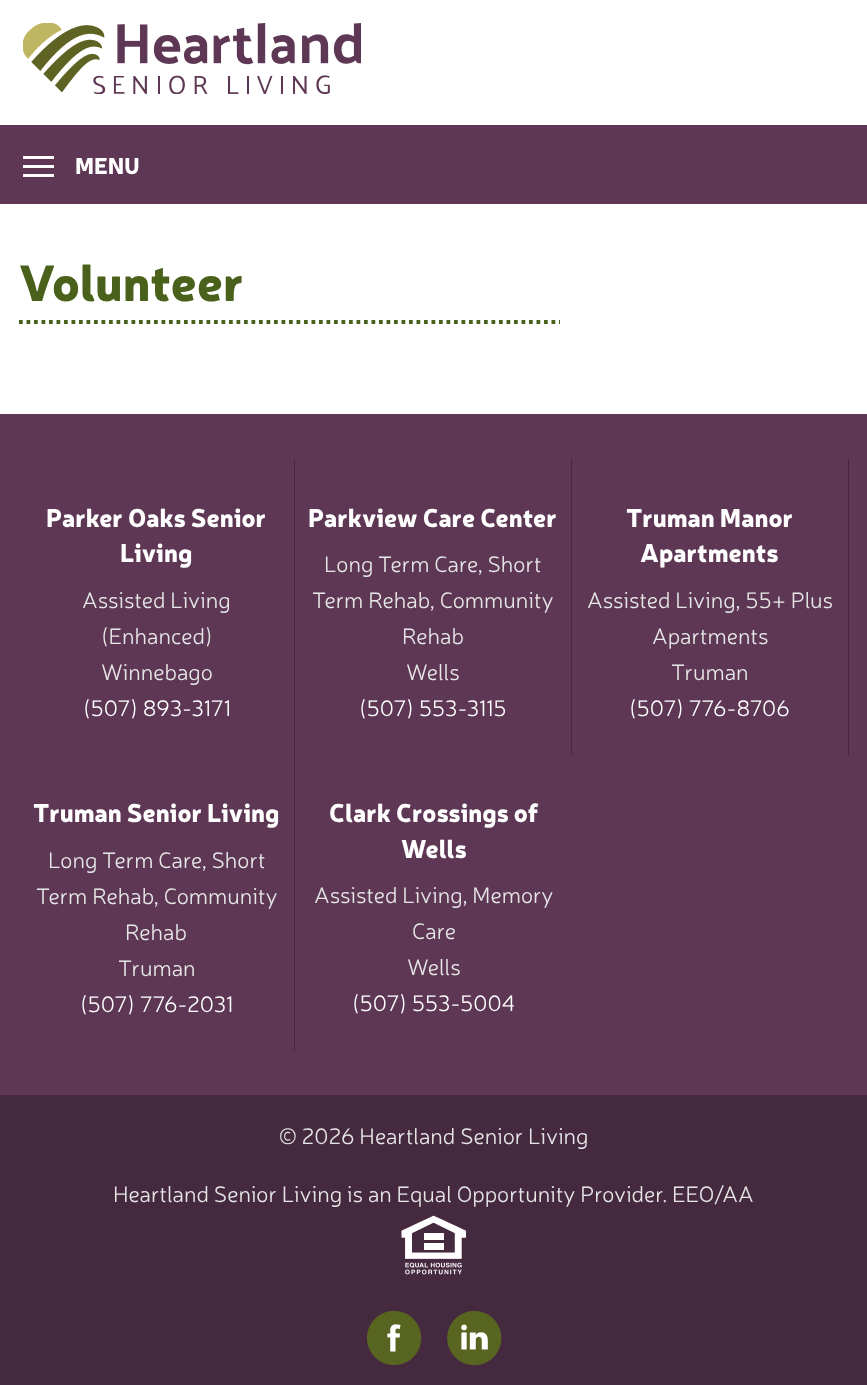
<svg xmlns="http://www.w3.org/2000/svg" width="867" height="1385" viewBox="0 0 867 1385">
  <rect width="100%" height="100%" fill="#fff"/>
  <image x="23" y="23" width="338" height="71" href="img/1.png"/>
  <path d="M0 125h867v79H0z" fill="#5d3754"/>
  <path d="M23 174h31v3H23z" fill="#fefefe"/>
  <path d="M23 165h31v3H23z" fill="#fefefe"/>
  <path d="M23 156h31v3H23z" fill="#fefefe"/>
  <path d="M19 322H560" fill="none" stroke="#4a611c" stroke-width="3.8" stroke-dasharray="3.75 3.75"/>
  <path d="M0 414h867v681H0z" fill="#5d3754"/>
  <path d="M294 459h1v591H294z" fill="#45293f"/>
  <path d="M571 459h1v296H571z" fill="#45293f"/>
  <path d="M848 459h1v296H848z" fill="#45293f"/>
  <path d="M0 1095h867v290H0z" fill="#45293f"/>
  <image x="401" y="1215" width="65" height="60" href="img/2.png"/>
  <image x="367" y="1310" width="55" height="56" href="img/3.png"/>
  <image x="447" y="1311" width="55" height="55" href="img/4.png"/>
  <text x="75" y="174" font-family="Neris" font-size="22.5" font-weight="900" fill="#fefefe">MENU</text>
  <text x="19" y="301" font-family="Neris" font-size="50" font-weight="900" fill="#4a611c">Volunteer</text>
  <g font-family="Neris" font-size="25.25" font-weight="900" fill="#fefefe">
    <text x="46" y="527">Parker Oaks Senior</text>
    <text x="120" y="562">Living</text>
  </g>
  <g font-family="Neris" font-size="22.5" font-weight="300" fill="#e6e6e6">
    <text x="82" y="608">Assisted Living</text>
    <text x="101" y="644">(Enhanced)</text>
    <text x="101" y="680">Winnebago</text>
  </g>
  <text x="83" y="716" font-family="Neris" font-size="22.5" font-weight="300" fill="#fefefe">(507) 893-3171</text>
  <text x="308" y="527" font-family="Neris" font-size="25.25" font-weight="900" fill="#fefefe">Parkview Care Center</text>
  <g font-family="Neris" font-size="22.5" font-weight="300" fill="#e6e6e6">
    <text x="324" y="572">Long Term Care, Short</text>
    <text x="312" y="608">Term Rehab, Community</text>
    <text x="402" y="644">Rehab</text>
    <text x="406" y="680">Wells</text>
  </g>
  <text x="359" y="716" font-family="Neris" font-size="22.5" font-weight="300" fill="#fefefe">(507) 553-3115</text>
  <g font-family="Neris" font-size="25.25" font-weight="900" fill="#fefefe">
    <text x="626" y="527">Truman Manor</text>
    <text x="640" y="562">Apartments</text>
  </g>
  <g font-family="Neris" font-size="22.5" font-weight="300" fill="#e6e6e6">
    <text x="587" y="608">Assisted Living, 55+ Plus</text>
    <text x="652" y="644">Apartments</text>
    <text x="671" y="680">Truman</text>
  </g>
  <text x="629" y="716" font-family="Neris" font-size="22.5" font-weight="300" fill="#fefefe">(507) 776-8706</text>
  <text x="33" y="822" font-family="Neris" font-size="25.25" font-weight="900" fill="#fefefe">Truman Senior Living</text>
  <g font-family="Neris" font-size="22.5" font-weight="300" fill="#e6e6e6">
    <text x="48" y="868">Long Term Care, Short</text>
    <text x="36" y="904">Term Rehab, Community</text>
    <text x="125" y="940">Rehab</text>
    <text x="118" y="976">Truman</text>
  </g>
  <text x="80" y="1012" font-family="Neris" font-size="22.5" font-weight="300" fill="#fefefe">(507) 776-2031</text>
  <g font-family="Neris" font-size="25.25" font-weight="900" fill="#fefefe">
    <text x="329" y="822">Clark Crossings of</text>
    <text x="401" y="858">Wells</text>
  </g>
  <g font-family="Neris" font-size="22.5" font-weight="300" fill="#e6e6e6">
    <text x="314" y="903">Assisted Living, Memory</text>
    <text x="412" y="939">Care</text>
    <text x="407" y="975">Wells</text>
  </g>
  <text x="352" y="1011" font-family="Neris" font-size="22.5" font-weight="300" fill="#fefefe">(507) 553-5004</text>
  <g font-family="Neris" font-size="22.5" font-weight="300" fill="#e6e6e6">
    <text x="279" y="1144">© 2026 Heartland Senior Living</text>
    <text x="113" y="1202">Heartland Senior Living is an Equal Opportunity Provider. EEO/AA</text>
  </g>
</svg>
